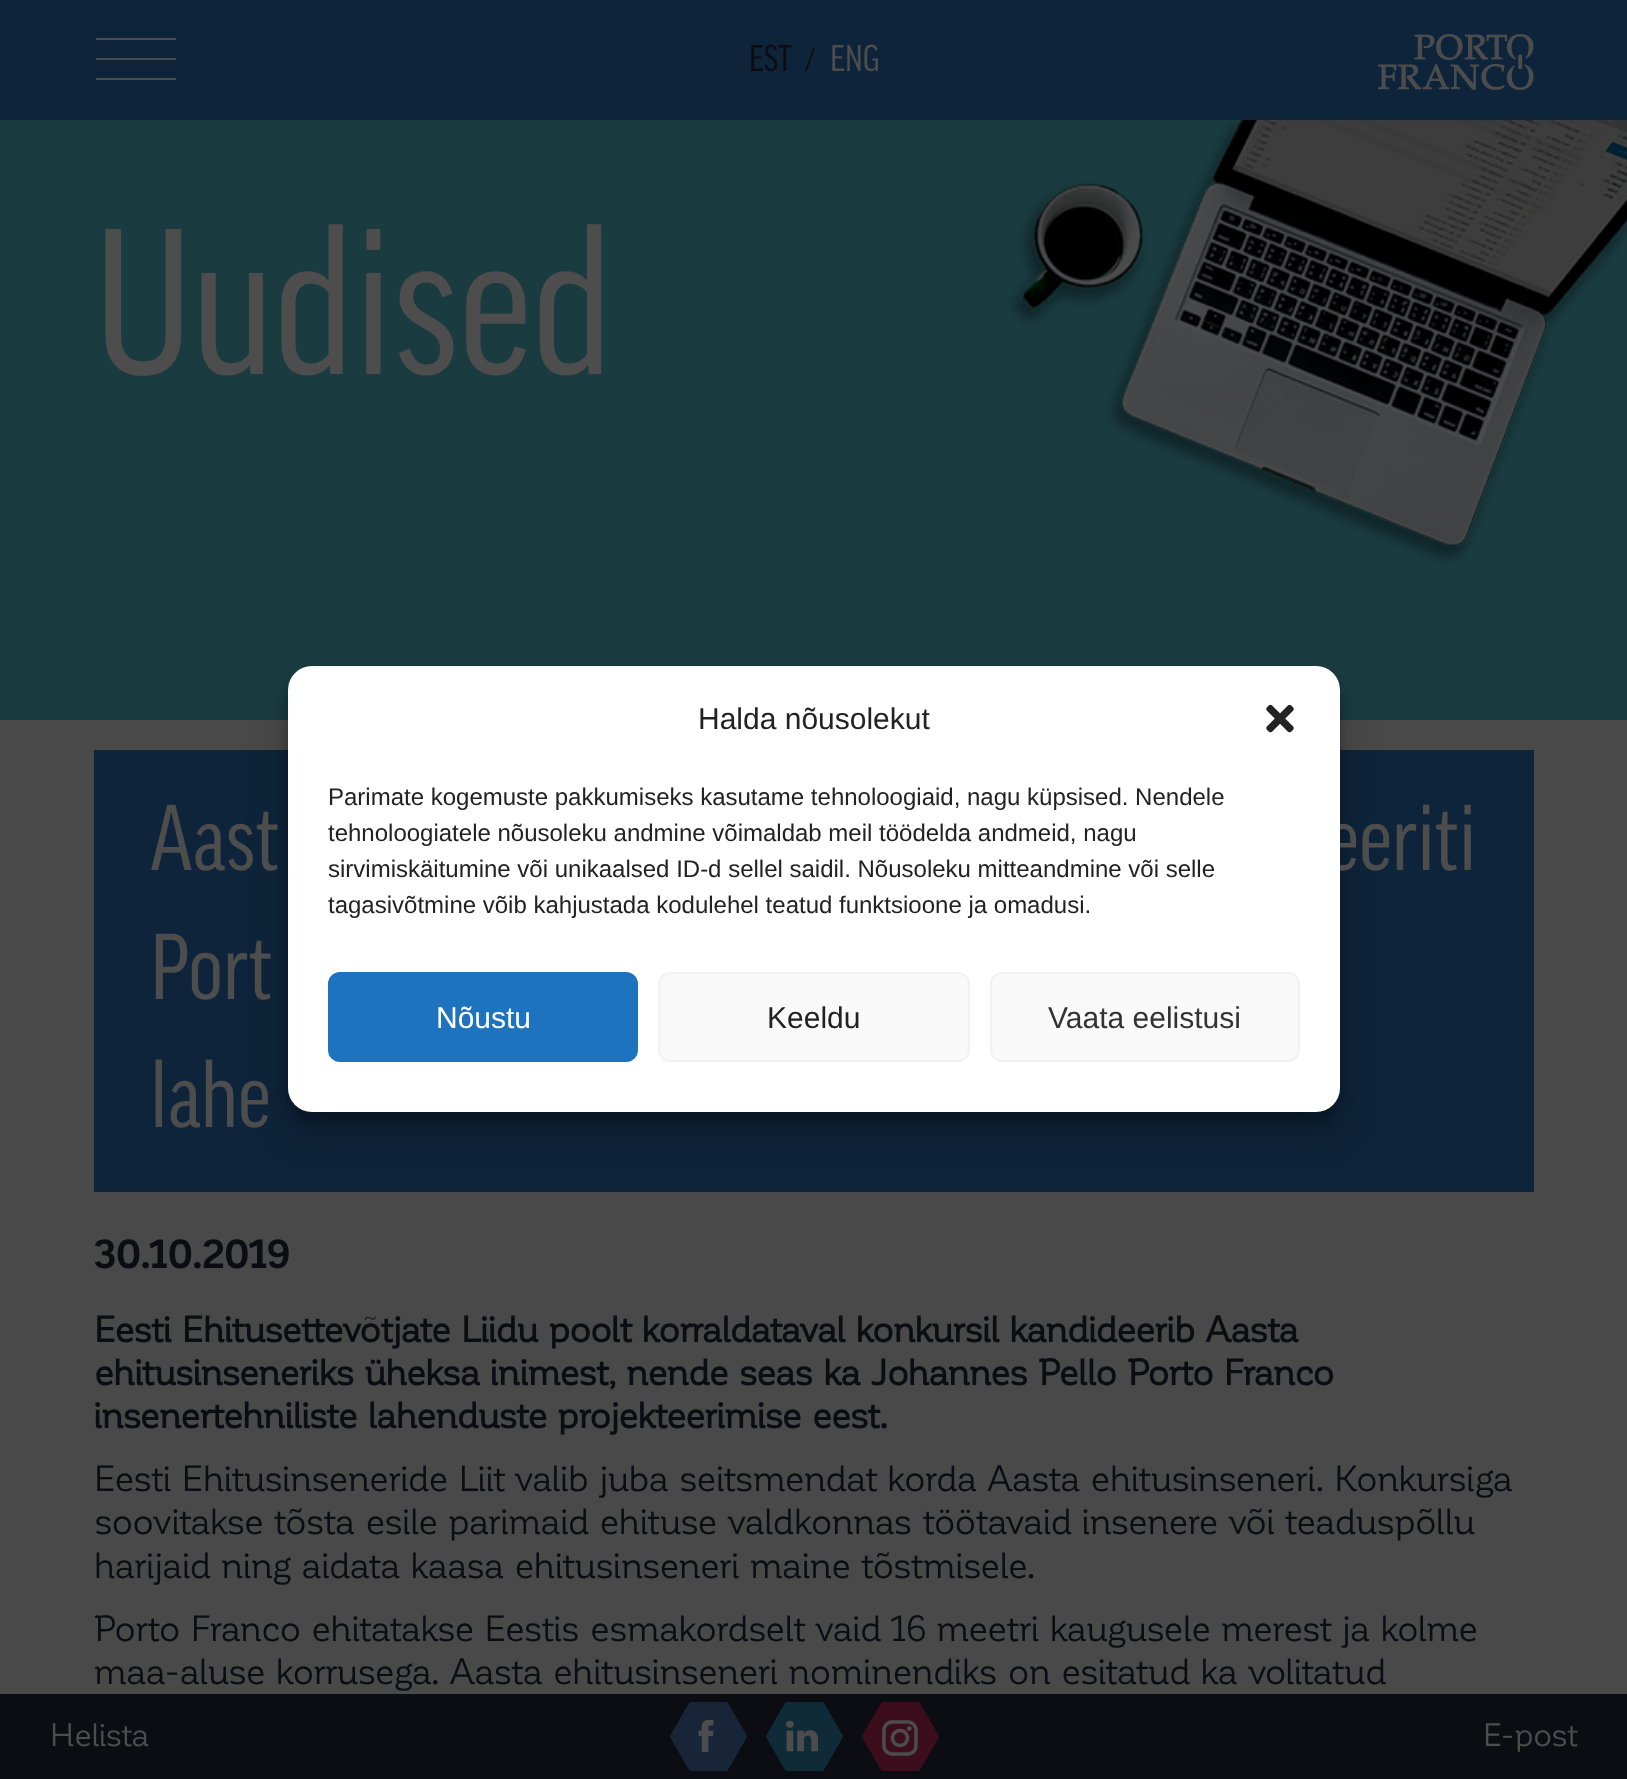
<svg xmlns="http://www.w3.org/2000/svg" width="1627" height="1779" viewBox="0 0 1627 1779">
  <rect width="100%" height="100%" fill="#494949"/>
  <path d="M0 0h1627v120H0z" fill="#0e243a"/>
  <path d="M96 38h80v2H96z" fill="#4d4d4d"/>
  <path d="M96 58h80v2H96z" fill="#4d4d4d"/>
  <path d="M96 78h80v2H96z" fill="#4d4d4d"/>
  <image x="1378" y="34" width="156" height="56" href="img/1.png"/>
  <path d="M0 120h1627v600H0z" fill="#1a3c41"/>
  <image x="1007" y="120" width="620" height="446" href="img/2.png"/>
  <path d="M94 750h1440v442H94z" fill="#0e243a"/>
  <rect x="288" y="678" width="1052" height="446" rx="24" fill="#0000003b" filter="blur(6px)"/>
  <rect x="288" y="686" width="1052" height="446" rx="24" fill="#00000030" filter="blur(20px)"/>
  <path d="M0 1694h1627v85H0z" fill="#0b0d12"/>
  <path d="M747 1736L728 1703L727 1702H690L689 1703L670 1736V1737L689 1770L690 1771H727L728 1770L747 1737Z" fill="#182539"/>
  <image x="698" y="1720" width="16" height="32" href="img/4.png"/>
  <path d="M843 1736L824 1703L823 1702H786L785 1703L766 1736V1737L785 1770L786 1771H823L824 1770L843 1737Z" fill="#0f2b37"/>
  <image x="786" y="1720" width="33" height="32" href="img/5.png"/>
  <path d="M939 1736L920 1703L919 1702H882L881 1703L862 1736V1737L881 1770L882 1771H919L920 1770L939 1737Z" fill="#3c0d1d"/>
  <image x="882" y="1720" width="36" height="36" href="img/6.png"/>
  <text x="749" y="71" font-family="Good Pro" font-size="36" fill="#0b0d12">EST</text>
  <text x="805" y="71" font-family="Liberation Serif" font-size="36" fill="#0b0d12">/</text>
  <text x="830" y="71" font-family="Good Pro" font-size="36" fill="#4d4d4d">ENG</text>
  <text x="94" y="374" font-family="Good Pro" font-size="200" fill="#4d4d4d">Uudised</text>
  <g font-family="Good Pro" font-size="90" fill="#4d4d4d">
    <text x="150" y="870">Aast</text>
    <text x="1326" y="870">eeriti</text>
  </g>
  <rect x="288" y="666" width="1052" height="446" rx="24" fill="#fff"/>
  <g font-family="Liberation Sans" font-size="24" fill="#222">
    <text x="328" y="913">tagasivõtmine võib kahjustada kodulehel teatud funktsioone ja omadusi.</text>
    <text x="328" y="877">sirvimiskäitumine või unikaalsed ID-d sellel saidil. Nõusoleku mitteandmine või selle</text>
    <text x="328" y="841">tehnoloogiatele nõusoleku andmine võimaldab meil töödelda andmeid, nagu</text>
    <text x="328" y="805">Parimate kogemuste pakkumiseks kasutame tehnoloogiaid, nagu küpsised. Nendele</text>
  </g>
  <image x="1266" y="704" width="28" height="29" href="img/3.png"/>
  <rect x="991" y="973" width="308" height="88" rx="11" fill="#f9f9f9" stroke="#f2f2f2" stroke-width="2"/>
  <text x="1048" y="1028" font-family="Liberation Sans" font-size="30" fill="#333">Vaata eelistusi</text>
  <rect x="659" y="973" width="310" height="88" rx="11" fill="#f9f9f9" stroke="#f2f2f2" stroke-width="2"/>
  <text x="767" y="1028" font-family="Liberation Sans" font-size="30" fill="#222">Keeldu</text>
  <rect x="329" y="973" width="308" height="88" rx="11" fill="#1e73be" stroke="#1e73be" stroke-width="2"/>
  <text x="436" y="1028" font-family="Liberation Sans" font-size="30" fill="#fff">Nõustu</text>
  <text x="698" y="729" font-family="Liberation Sans" font-size="30" fill="#222">Halda nõusolekut</text>
  <g font-family="Good Pro" font-size="90" fill="#4d4d4d">
    <text x="150" y="999">Port</text>
    <text x="150" y="1127">lahe</text>
  </g>
  <text x="94" y="1268" font-family="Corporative" font-size="40" font-weight="bold" fill="#0b0d12">30.10.2019</text>
  <g font-family="'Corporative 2'" font-size="36" font-weight="bold" fill="#0b0d12">
    <text x="94" y="1342">Eesti Ehitusettevõtjate Liidu poolt korraldataval konkursil kandideerib Aasta</text>
    <text x="94" y="1385">ehitusinseneriks üheksa inimest, nende seas ka Johannes Pello Porto Franco</text>
    <text x="94" y="1428">insenertehniliste lahenduste projekteerimise eest.</text>
  </g>
  <g font-family="Corporative" font-size="36" fill="#0b0d12">
    <text x="94" y="1491">Eesti Ehitusinseneride Liit valib juba seitsmendat korda Aasta ehitusinseneri. Konkursiga</text>
    <text x="94" y="1534">soovitakse tõsta esile parimaid ehituse valdkonnas töötavaid insenere või teaduspõllu</text>
    <text x="94" y="1578">harijaid ning aidata kaasa ehitusinseneri maine tõstmisele.</text>
    <text x="94" y="1641">Porto Franco ehitatakse Eestis esmakordselt vaid 16 meetri kaugusele merest ja kolme</text>
    <text x="94" y="1684">maa-aluse korrusega. Aasta ehitusinseneri nominendiks on esitatud ka volitatud</text>
  </g>
  <g font-family="Corporative" font-size="32" fill="#4d4d4d">
    <text x="50" y="1746">Helista</text>
    <text x="1483" y="1746">E-post</text>
  </g>
</svg>
